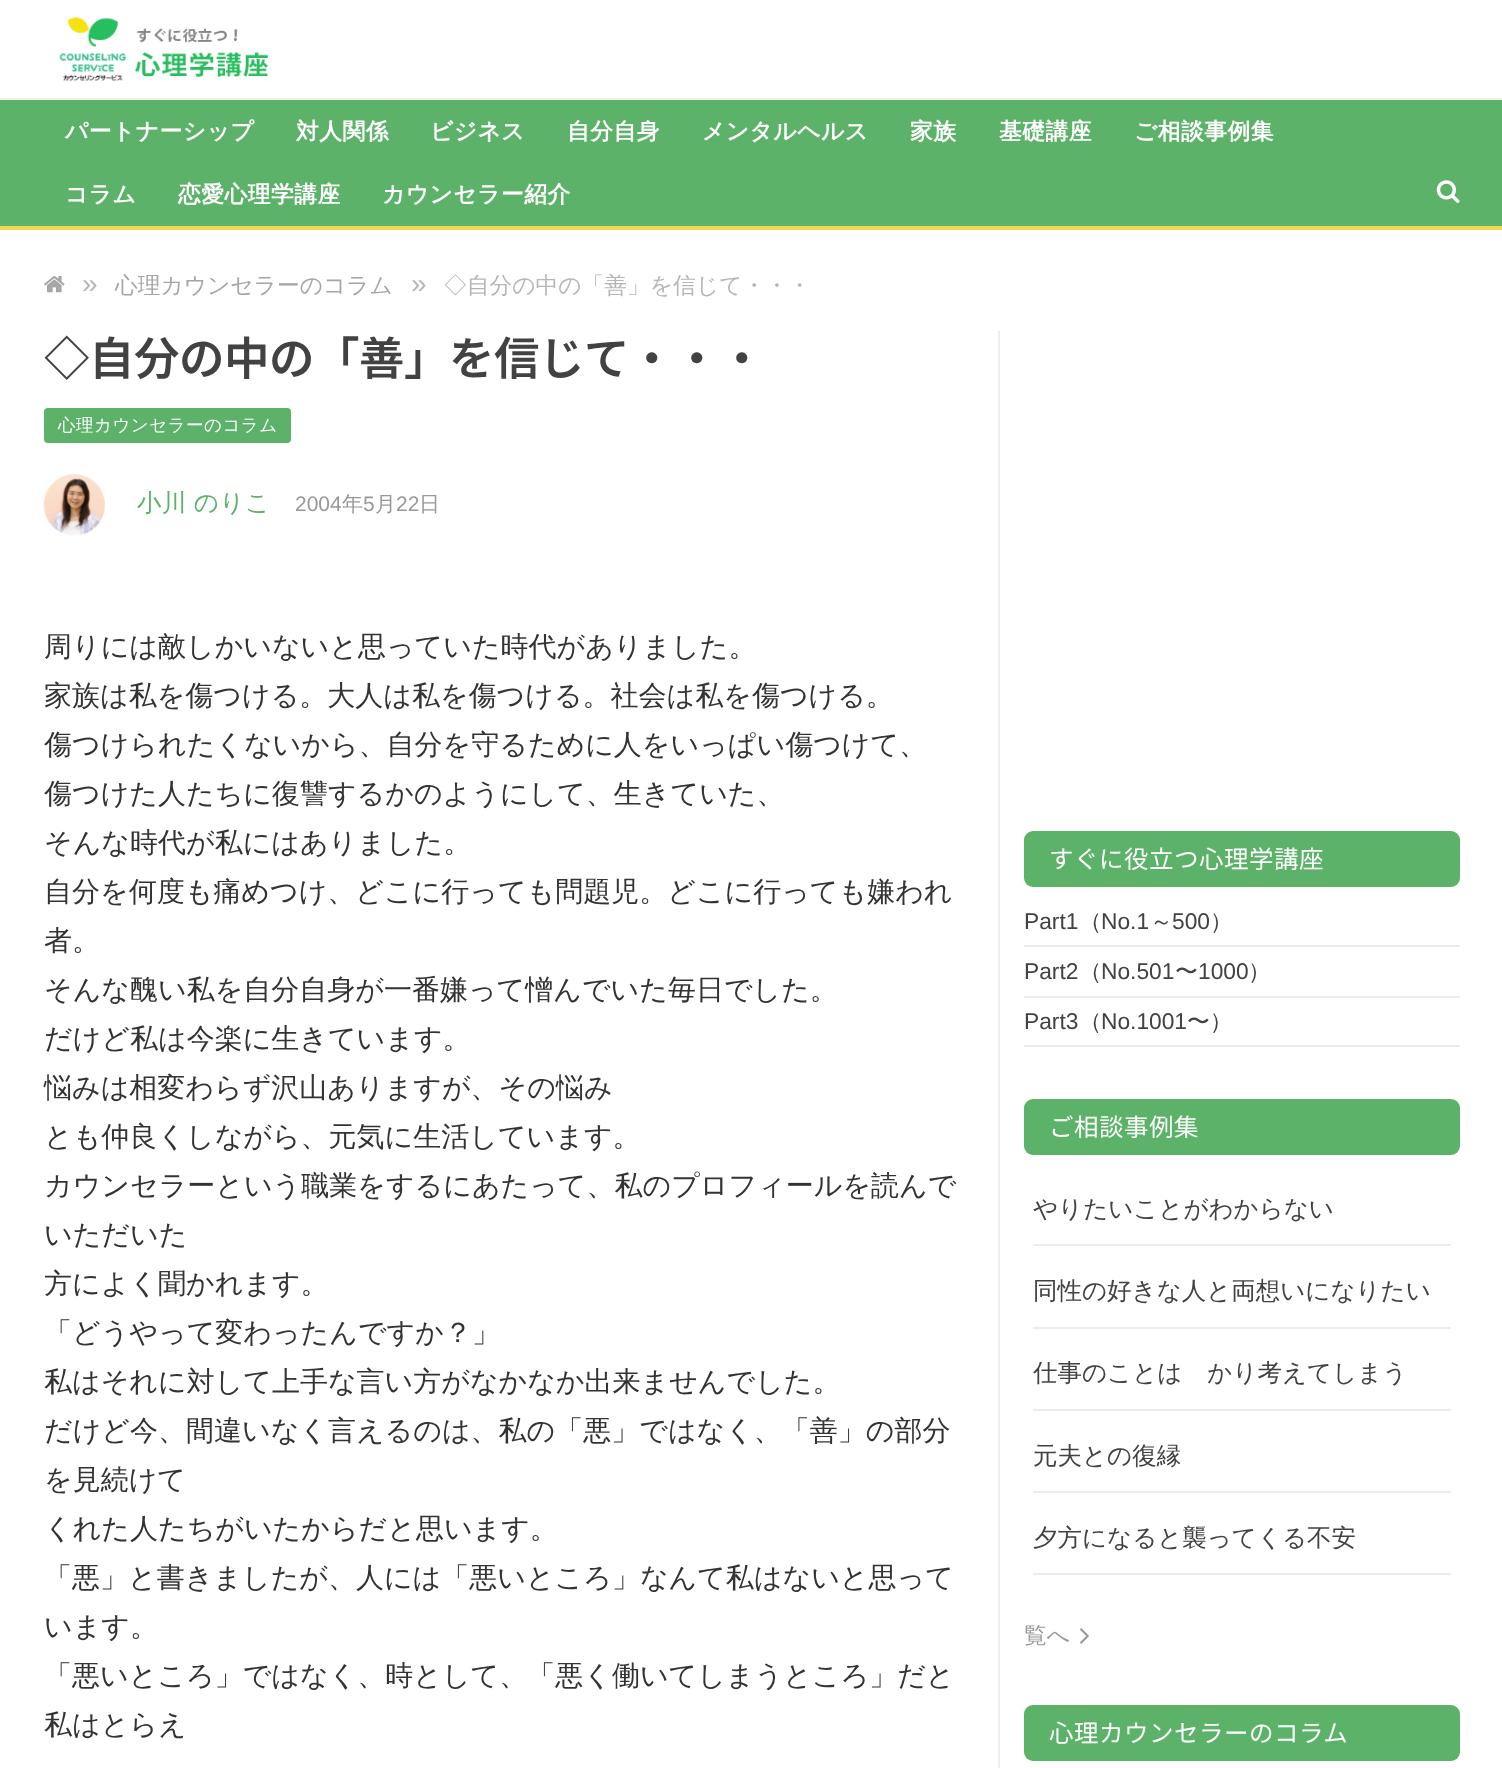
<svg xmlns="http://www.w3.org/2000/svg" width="1502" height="1768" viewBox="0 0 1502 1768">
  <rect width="100%" height="100%" fill="#fff"/>
  <image x="59" y="17" width="209" height="64" href="img/1.png"/>
  <path d="M0 100h1502v126H0z" fill="#5bb268"/>
  <path d="M0 98h1502v2H0z" fill="#eee"/>
  <path d="M0 226h1502v4H0z" fill="#efd954"/>
  <image x="1436" y="180" width="24" height="23" href="img/2.png"/>
  <image x="44" y="276" width="21" height="17" href="img/3.png"/>
  <rect x="44" y="408" width="247" height="35" rx="4" fill="#5bb268"/>
  <image x="43" y="474" width="62" height="62" href="img/4.png"/>
  <path d="M998 331h2v1437H998z" fill="#eee"/>
  <rect x="1024" y="831" width="436" height="56" rx="9" fill="#5bb268"/>
  <path d="M1024 945h436v2H1024z" fill="#ececec"/>
  <path d="M1024 996h436v2H1024z" fill="#ececec"/>
  <path d="M1024 1045h436v2H1024z" fill="#ececec"/>
  <rect x="1024" y="1099" width="436" height="56" rx="9" fill="#5bb268"/>
  <path d="M1033 1244h418v2H1033z" fill="#ececec"/>
  <path d="M1033 1327h418v2H1033z" fill="#ececec"/>
  <path d="M1033 1409h418v2H1033z" fill="#ececec"/>
  <path d="M1033 1491h418v2H1033z" fill="#ececec"/>
  <path d="M1033 1573h418v2H1033z" fill="#ececec"/>
  <image x="1080" y="1628" width="9" height="16" href="img/5.png"/>
  <rect x="1024" y="1705" width="436" height="56" rx="9" fill="#5bb268"/>
  <g font-family="WenQuanYi Zen Hei" font-size="22.75" font-weight="bold" letter-spacing="0.5" fill="#fff">
    <text x="65" y="139">パートナーシップ</text>
    <text x="296" y="139">対人関係</text>
    <text x="430" y="139">ビジネス</text>
    <text x="567" y="139">自分自身</text>
    <text x="702" y="139">メンタルヘルス</text>
    <text x="910" y="139">家族</text>
    <text x="999" y="139">基礎講座</text>
    <text x="1134" y="139">ご相談事例集</text>
    <text x="65" y="202">コラム</text>
    <text x="178" y="202">恋愛心理学講座</text>
    <text x="382" y="202">カウンセラー紹介</text>
  </g>
  <text x="82" y="293" font-family="Liberation Sans" font-size="28" fill="#b6b6b6">»</text>
  <text x="115" y="293" font-family="WenQuanYi Zen Hei" font-size="22.75" font-weight="500" fill="#a6a6a6">心理カウンセラーのコラム</text>
  <text x="411" y="293" font-family="Liberation Sans" font-size="28" fill="#b6b6b6">»</text>
  <text x="444" y="293" font-family="WenQuanYi Zen Hei" font-size="22.75" font-weight="500" fill="#b6b6b6">◇自分の中の「善」を信じて・・・</text>
  <text x="44" y="375" font-family="Noto Sans JP" font-size="45.5" font-weight="600" letter-spacing="-0.5" fill="#424242">◇自分の中の「善」を信じて・・・</text>
  <text x="58" y="431" font-family="WenQuanYi Zen Hei" font-size="17.5" font-weight="500" letter-spacing="0.5" fill="#fff">心理カウンセラーのコラム</text>
  <text x="137" y="511" word-spacing="-1" font-family="WenQuanYi Zen Hei" font-size="24.5" font-weight="500" letter-spacing="0.5" fill="#5bb268">小川 のりこ</text>
  <text x="295" y="511" font-family="Liberation Sans" font-size="21" fill="#999">2004</text>
  <text x="342" y="511" font-family="WenQuanYi Zen Hei" font-size="21" font-weight="500" fill="#999">年</text>
  <text x="363" y="511" font-family="Liberation Sans" font-size="21" fill="#999">5</text>
  <text x="375" y="511" font-family="WenQuanYi Zen Hei" font-size="21" font-weight="500" fill="#999">月</text>
  <text x="396" y="511" font-family="Liberation Sans" font-size="21" fill="#999">22</text>
  <text x="419" y="511" font-family="WenQuanYi Zen Hei" font-size="21" font-weight="500" fill="#999">日</text>
  <g font-family="WenQuanYi Zen Hei" font-size="28" font-weight="500" fill="#333">
    <text x="44" y="656">周りには敵しかいないと思っていた時代がありました。</text>
    <text x="44" y="705">家族は私を傷つける。大人は私を傷つける。社会は私を傷つける。</text>
    <text x="44" y="754">傷つけられたくないから、自分を守るために人をいっぱい傷つけて、</text>
    <text x="44" y="803">傷つけた人たちに復讐するかのようにして、生きていた、</text>
    <text x="44" y="852">そんな時代が私にはありました。</text>
    <text x="44" y="901">自分を何度も痛めつけ、どこに行っても問題児。どこに行っても嫌われ</text>
    <text x="44" y="950">者。</text>
    <text x="44" y="999">そんな醜い私を自分自身が一番嫌って憎んでいた毎日でした。</text>
    <text x="44" y="1048">だけど私は今楽に生きています。</text>
    <text x="44" y="1097">悩みは相変わらず沢山ありますが、その悩み</text>
    <text x="44" y="1146">とも仲良くしながら、元気に生活しています。</text>
    <text x="44" y="1195">カウンセラーという職業をするにあたって、私のプロフィールを読んで</text>
    <text x="44" y="1244">いただいた</text>
    <text x="44" y="1293">方によく聞かれます。</text>
    <text x="44" y="1342">「どうやって変わったんですか？」</text>
    <text x="44" y="1391">私はそれに対して上手な言い方がなかなか出来ませんでした。</text>
    <text x="44" y="1440">だけど今、間違いなく言えるのは、私の「悪」ではなく、「善」の部分</text>
    <text x="44" y="1489">を見続けて</text>
    <text x="44" y="1538">くれた人たちがいたからだと思います。</text>
    <text x="44" y="1587">「悪」と書きましたが、人には「悪いところ」なんて私はないと思って</text>
    <text x="44" y="1636">います。</text>
    <text x="44" y="1685">「悪いところ」ではなく、時として、「悪く働いてしまうところ」だと</text>
    <text x="44" y="1734">私はとらえ</text>
  </g>
  <text x="1049" y="868" font-family="Noto Sans JP" font-size="24.5" letter-spacing="0.5" fill="#fff">すぐに役立つ心理学講座</text>
  <text x="1024" y="929" font-family="Liberation Sans" font-size="22.75" fill="#424242">Part1</text>
  <text x="1079" y="929" font-family="WenQuanYi Zen Hei" font-size="22.75" font-weight="500" fill="#424242">（</text>
  <text x="1101" y="929" font-family="Liberation Sans" font-size="22.75" fill="#424242">No.1</text>
  <text x="1150" y="929" font-family="WenQuanYi Zen Hei" font-size="22.75" font-weight="500" fill="#424242">～</text>
  <text x="1172" y="929" font-family="Liberation Sans" font-size="22.75" fill="#424242">500</text>
  <text x="1210" y="929" font-family="WenQuanYi Zen Hei" font-size="22.75" font-weight="500" fill="#424242">）</text>
  <text x="1024" y="979" font-family="Liberation Sans" font-size="22.75" fill="#424242">Part2</text>
  <text x="1079" y="979" font-family="WenQuanYi Zen Hei" font-size="22.75" font-weight="500" fill="#424242">（</text>
  <text x="1101" y="979" font-family="Liberation Sans" font-size="22.75" fill="#424242">No.501</text>
  <text x="1175" y="979" font-family="WenQuanYi Zen Hei" font-size="22.75" font-weight="500" fill="#424242">〜</text>
  <text x="1198" y="979" font-family="Liberation Sans" font-size="22.75" fill="#424242">1000</text>
  <text x="1248" y="979" font-family="WenQuanYi Zen Hei" font-size="22.75" font-weight="500" fill="#424242">）</text>
  <text x="1024" y="1029" font-family="Liberation Sans" font-size="22.75" fill="#424242">Part3</text>
  <text x="1079" y="1029" font-family="WenQuanYi Zen Hei" font-size="22.75" font-weight="500" fill="#424242">（</text>
  <text x="1101" y="1029" font-family="Liberation Sans" font-size="22.75" fill="#424242">No.1001</text>
  <text x="1187" y="1029" font-family="WenQuanYi Zen Hei" font-size="22.75" font-weight="500" fill="#424242">〜）</text>
  <text x="1049" y="1136" font-family="Noto Sans JP" font-size="24.5" letter-spacing="0.5" fill="#fff">ご相談事例集</text>
  <g font-family="WenQuanYi Zen Hei" font-size="24.5" font-weight="500" fill="#424242">
    <text x="1033" y="1217">やりたいことがわからない</text>
    <text x="1033" y="1299">同性の好きな人と両想いになりたい</text>
    <text x="1033" y="1381">仕事のことばかり考えてしまう</text>
    <text x="1033" y="1464">元夫との復縁</text>
    <text x="1033" y="1546">夕方になると襲ってくる不安</text>
  </g>
  <text x="1024" y="1643" font-family="WenQuanYi Zen Hei" font-size="22.75" font-weight="500" fill="#999">覧へ</text>
  <text x="1049" y="1742" font-family="Noto Sans JP" font-size="24.5" letter-spacing="0.5" fill="#fff">心理カウンセラーのコラム</text>
</svg>
